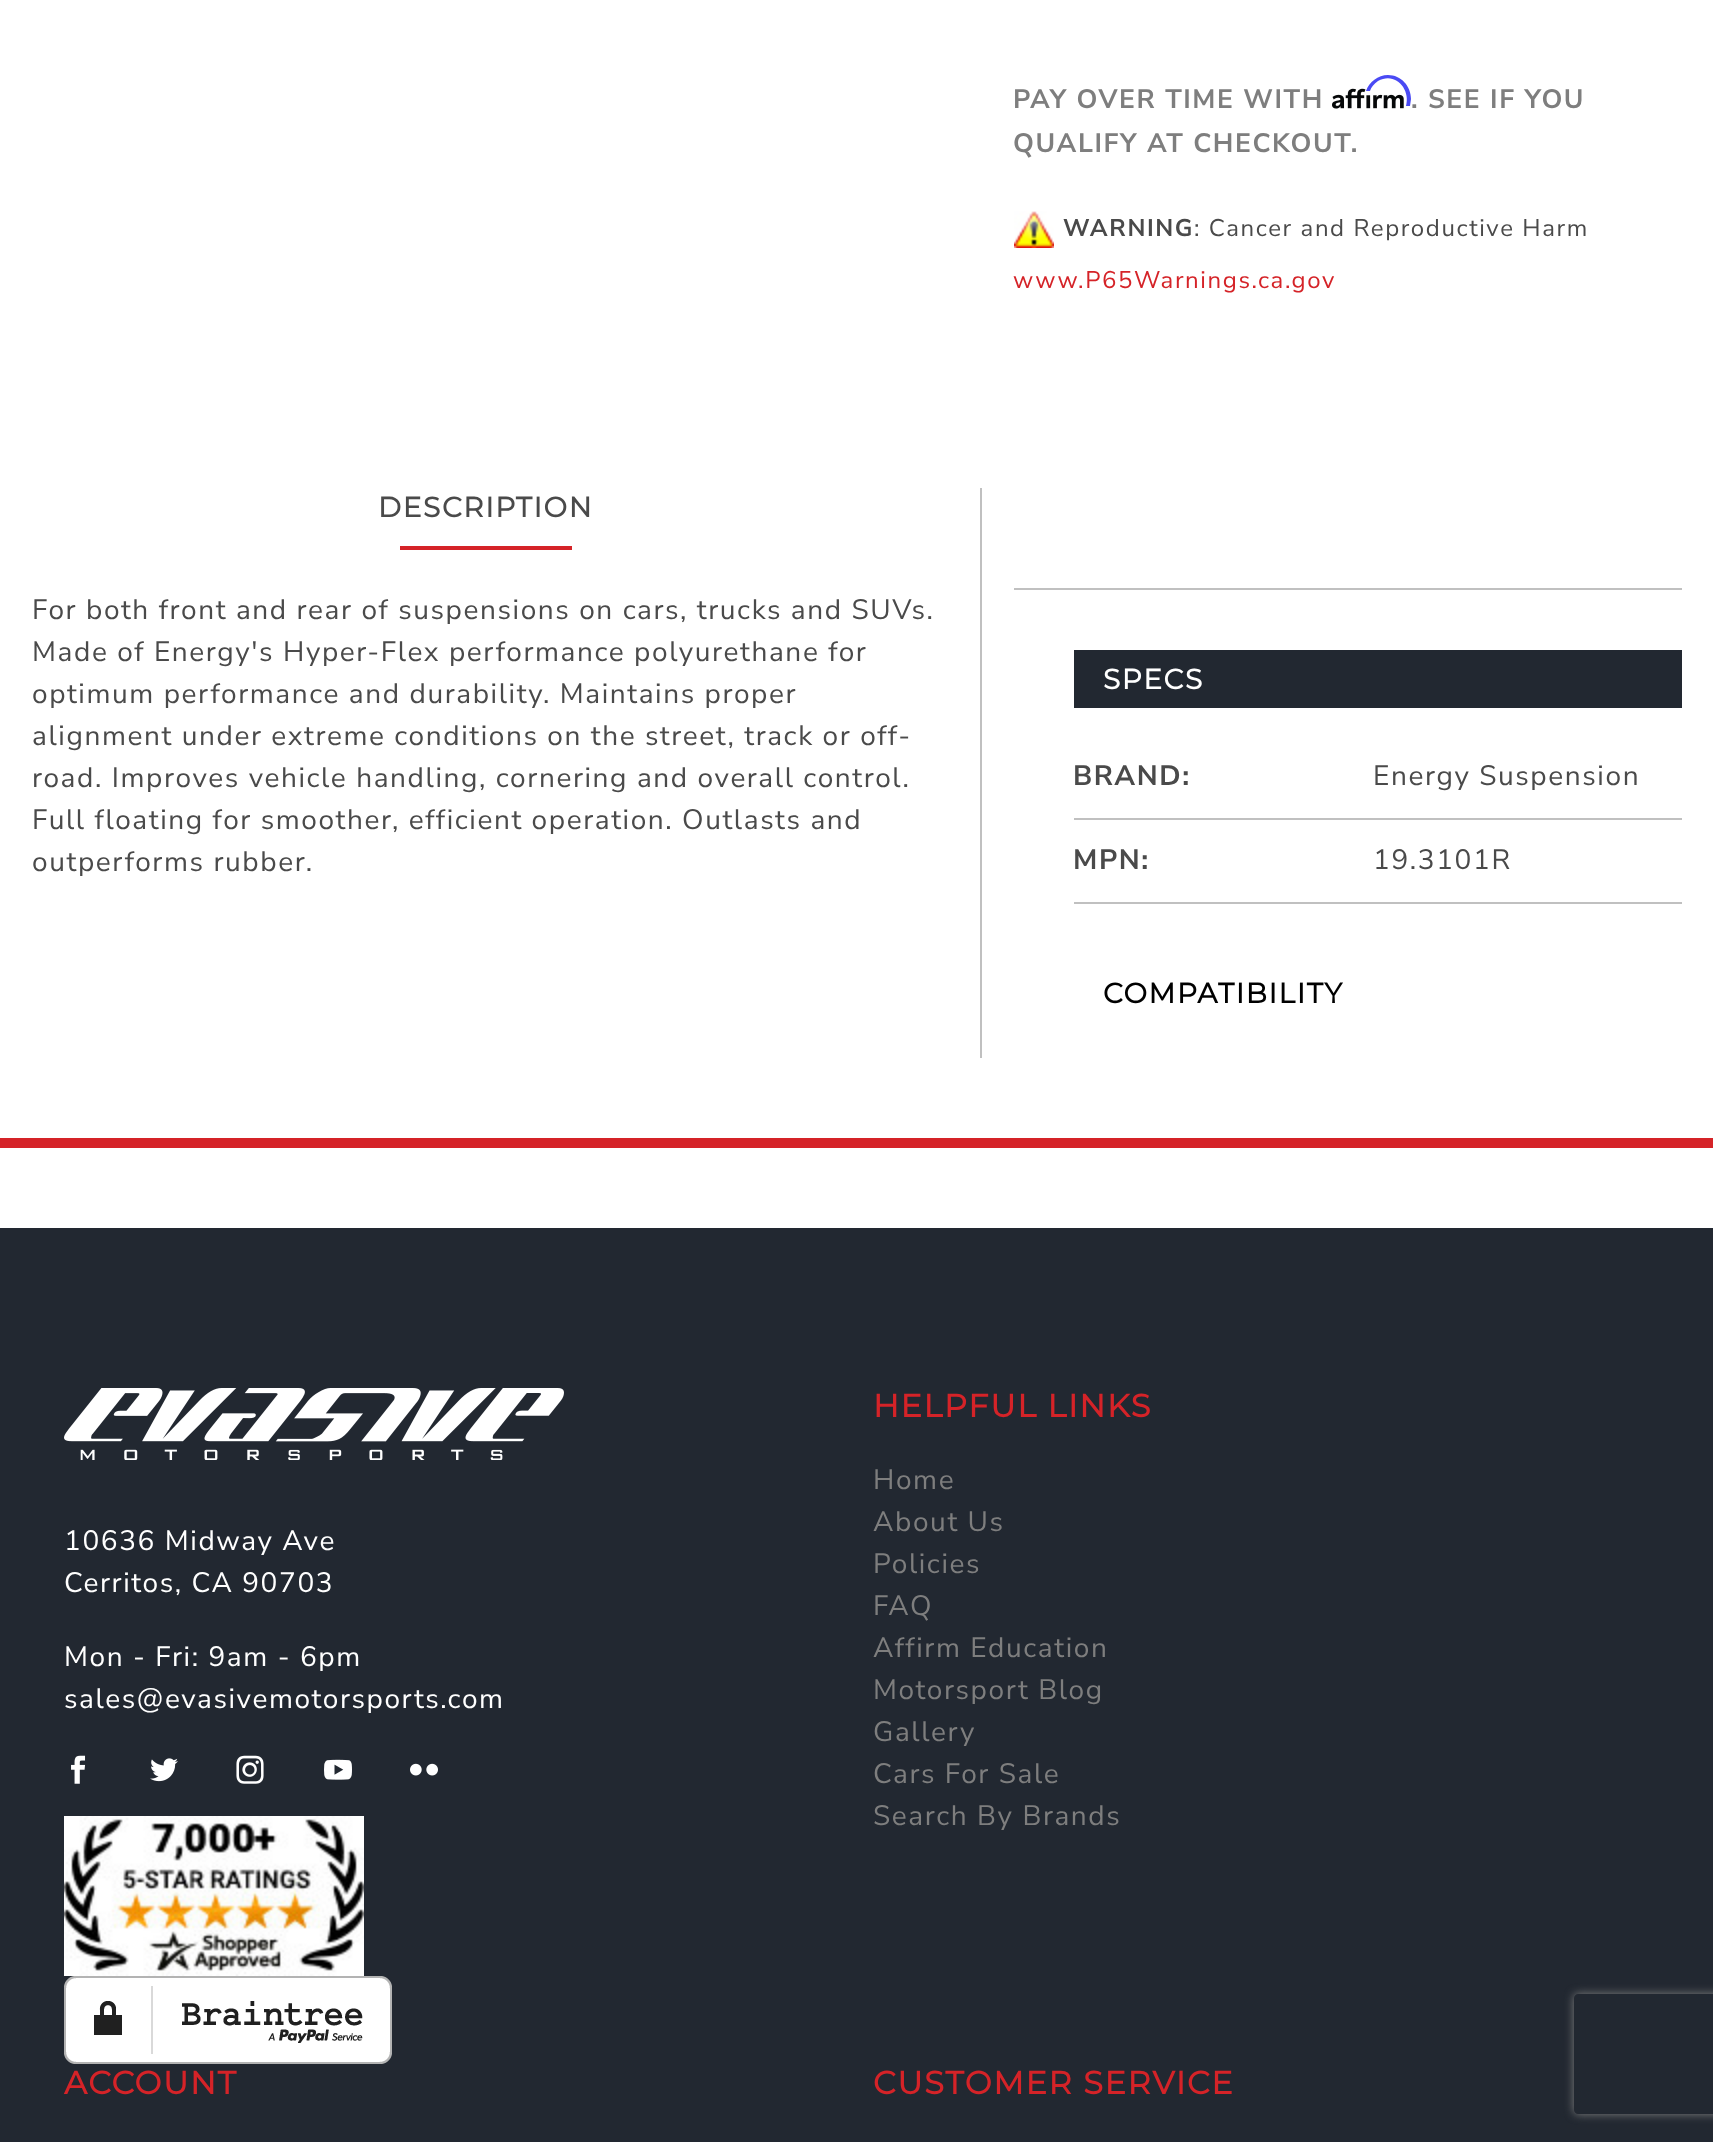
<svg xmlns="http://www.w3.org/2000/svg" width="1713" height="2142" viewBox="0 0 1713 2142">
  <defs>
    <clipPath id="clip1"><path d="M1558 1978H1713V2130H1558ZM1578 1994H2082C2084 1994 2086 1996 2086 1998V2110C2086 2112 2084 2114 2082 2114H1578C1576 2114 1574 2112 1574 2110V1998C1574 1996 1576 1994 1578 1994Z" clip-rule="evenodd"/></clipPath>
  </defs>
  <rect width="100%" height="100%" fill="#fff"/>
  <image x="1332" y="88" width="72" height="21" href="img/1.png"/>
  <path d="M1388 75C1378 75 1369 82 1366 91H1370C1371 87 1374 84 1378 81C1395 71 1411 89 1406 106H1410L1411 99C1411 86 1401 75 1388 75Z" fill="#4a4af4"/>
  <image x="1014" y="211" width="40" height="37" href="img/2.png"/>
  <path d="M980 488h2v570H980z" fill="#c0c0c0"/>
  <path d="M400 546h172v4H400z" fill="#d52328"/>
  <path d="M1014 588h668v2H1014z" fill="#c0c0c0"/>
  <path d="M1074 650h608v58H1074z" fill="#222831"/>
  <path d="M1074 818h608v2H1074z" fill="#c0c0c0"/>
  <path d="M1074 902h608v2H1074z" fill="#c0c0c0"/>
  <path d="M0 1138h1713v10H0z" fill="#d52328"/>
  <path d="M0 1228h1713v914H0z" fill="#222831"/>
  <image x="64" y="1388" width="500" height="72" href="img/3.png"/>
  <image x="71" y="1755" width="15" height="29" href="img/4.png"/>
  <image x="150" y="1758" width="28" height="24" href="img/5.png"/>
  <image x="236" y="1755" width="28" height="29" href="img/6.png"/>
  <image x="324" y="1759" width="28" height="21" href="img/7.png"/>
  <image x="410" y="1763" width="28" height="13" href="img/8.png"/>
  <image x="64" y="1816" width="300" height="160" href="img/9.png"/>
  <image x="64" y="1976" width="328" height="88" href="img/10.png"/>
  <g clip-path="url(#clip1)">
    <rect x="1574" y="1994" width="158" height="120" rx="4" fill="#808080" filter="blur(5px)"/>
  </g>
  <g font-family="Nunito Sans" font-size="26.6" font-weight="bold" letter-spacing="1.6" fill="#7e7e7e">
    <text x="1013" y="108">PAY OVER TIME WITH</text>
    <text x="1411" y="108">. SEE IF YOU</text>
    <text x="1013" y="152">QUALIFY AT CHECKOUT.</text>
  </g>
  <text x="1063" y="236" font-family="Nunito Sans" font-size="24" font-weight="bold" letter-spacing="1.6" fill="#4a4a4a">WARNING</text>
  <text x="1194" y="236" font-family="Nunito Sans" font-size="24" letter-spacing="1.6" fill="#4a4a4a">: Cancer and Reproductive Harm</text>
  <text x="1013" y="288" font-family="Nunito Sans" font-size="24" letter-spacing="1.6" fill="#d52328">www.P65Warnings.ca.gov</text>
  <text x="378" y="517" font-family="Montserrat" font-size="28" font-weight="bold" letter-spacing="1.6" fill="#4a4a4a">DESCRIPTION</text>
  <g font-family="Nunito Sans" font-size="28" letter-spacing="1.6" fill="#4a4a4a">
    <text x="32" y="619">For both front and rear of suspensions on cars, trucks and SUVs.</text>
    <text x="32" y="661">Made of Energy's Hyper-Flex performance polyurethane for</text>
    <text x="32" y="703">optimum performance and durability. Maintains proper</text>
    <text x="32" y="745">alignment under extreme conditions on the street, track or off-</text>
    <text x="32" y="787">road. Improves vehicle handling, cornering and overall control.</text>
    <text x="32" y="829">Full floating for smoother, efficient operation. Outlasts and</text>
    <text x="32" y="871">outperforms rubber.</text>
  </g>
  <text x="1103" y="689" font-family="Montserrat" font-size="28" font-weight="bold" letter-spacing="1.6" fill="#fff">SPECS</text>
  <text x="1073" y="785" font-family="Nunito Sans" font-size="28" font-weight="bold" letter-spacing="1.6" fill="#4a4a4a">BRAND:</text>
  <text x="1373" y="785" font-family="Nunito Sans" font-size="28" letter-spacing="1.6" fill="#4a4a4a">Energy Suspension</text>
  <text x="1073" y="869" font-family="Nunito Sans" font-size="28" font-weight="bold" letter-spacing="1.6" fill="#4a4a4a">MPN:</text>
  <text x="1373" y="869" font-family="Nunito Sans" font-size="28" letter-spacing="1.6" fill="#4a4a4a">19.3101R</text>
  <text x="1103" y="1003" font-family="Montserrat" font-size="28" font-weight="bold" letter-spacing="1.6" fill="#000">COMPATIBILITY</text>
  <g font-family="Nunito Sans" font-size="28" letter-spacing="1.6" fill="#fff">
    <text x="64" y="1550">10636 Midway Ave</text>
    <text x="64" y="1592">Cerritos, CA 90703</text>
    <text x="64" y="1666">Mon - Fri: 9am - 6pm</text>
    <text x="64" y="1708">sales@evasivemotorsports.com</text>
  </g>
  <text x="873" y="1417" font-family="Montserrat" font-size="32" font-weight="bold" letter-spacing="1.6" fill="#d52328">HELPFUL LINKS</text>
  <g font-family="Nunito Sans" font-size="28" letter-spacing="1.6" fill="#7e7e7e">
    <text x="873" y="1489">Home</text>
    <text x="873" y="1531">About Us</text>
    <text x="873" y="1573">Policies</text>
    <text x="873" y="1615">FAQ</text>
    <text x="873" y="1657">Affirm Education</text>
    <text x="873" y="1699">Motorsport Blog</text>
    <text x="873" y="1741">Gallery</text>
    <text x="873" y="1783">Cars For Sale</text>
    <text x="873" y="1825">Search By Brands</text>
  </g>
  <g font-family="Montserrat" font-size="32" font-weight="bold" letter-spacing="1.6" fill="#d52328">
    <text x="64" y="2094">ACCOUNT</text>
    <text x="873" y="2094">CUSTOMER SERVICE</text>
  </g>
</svg>
